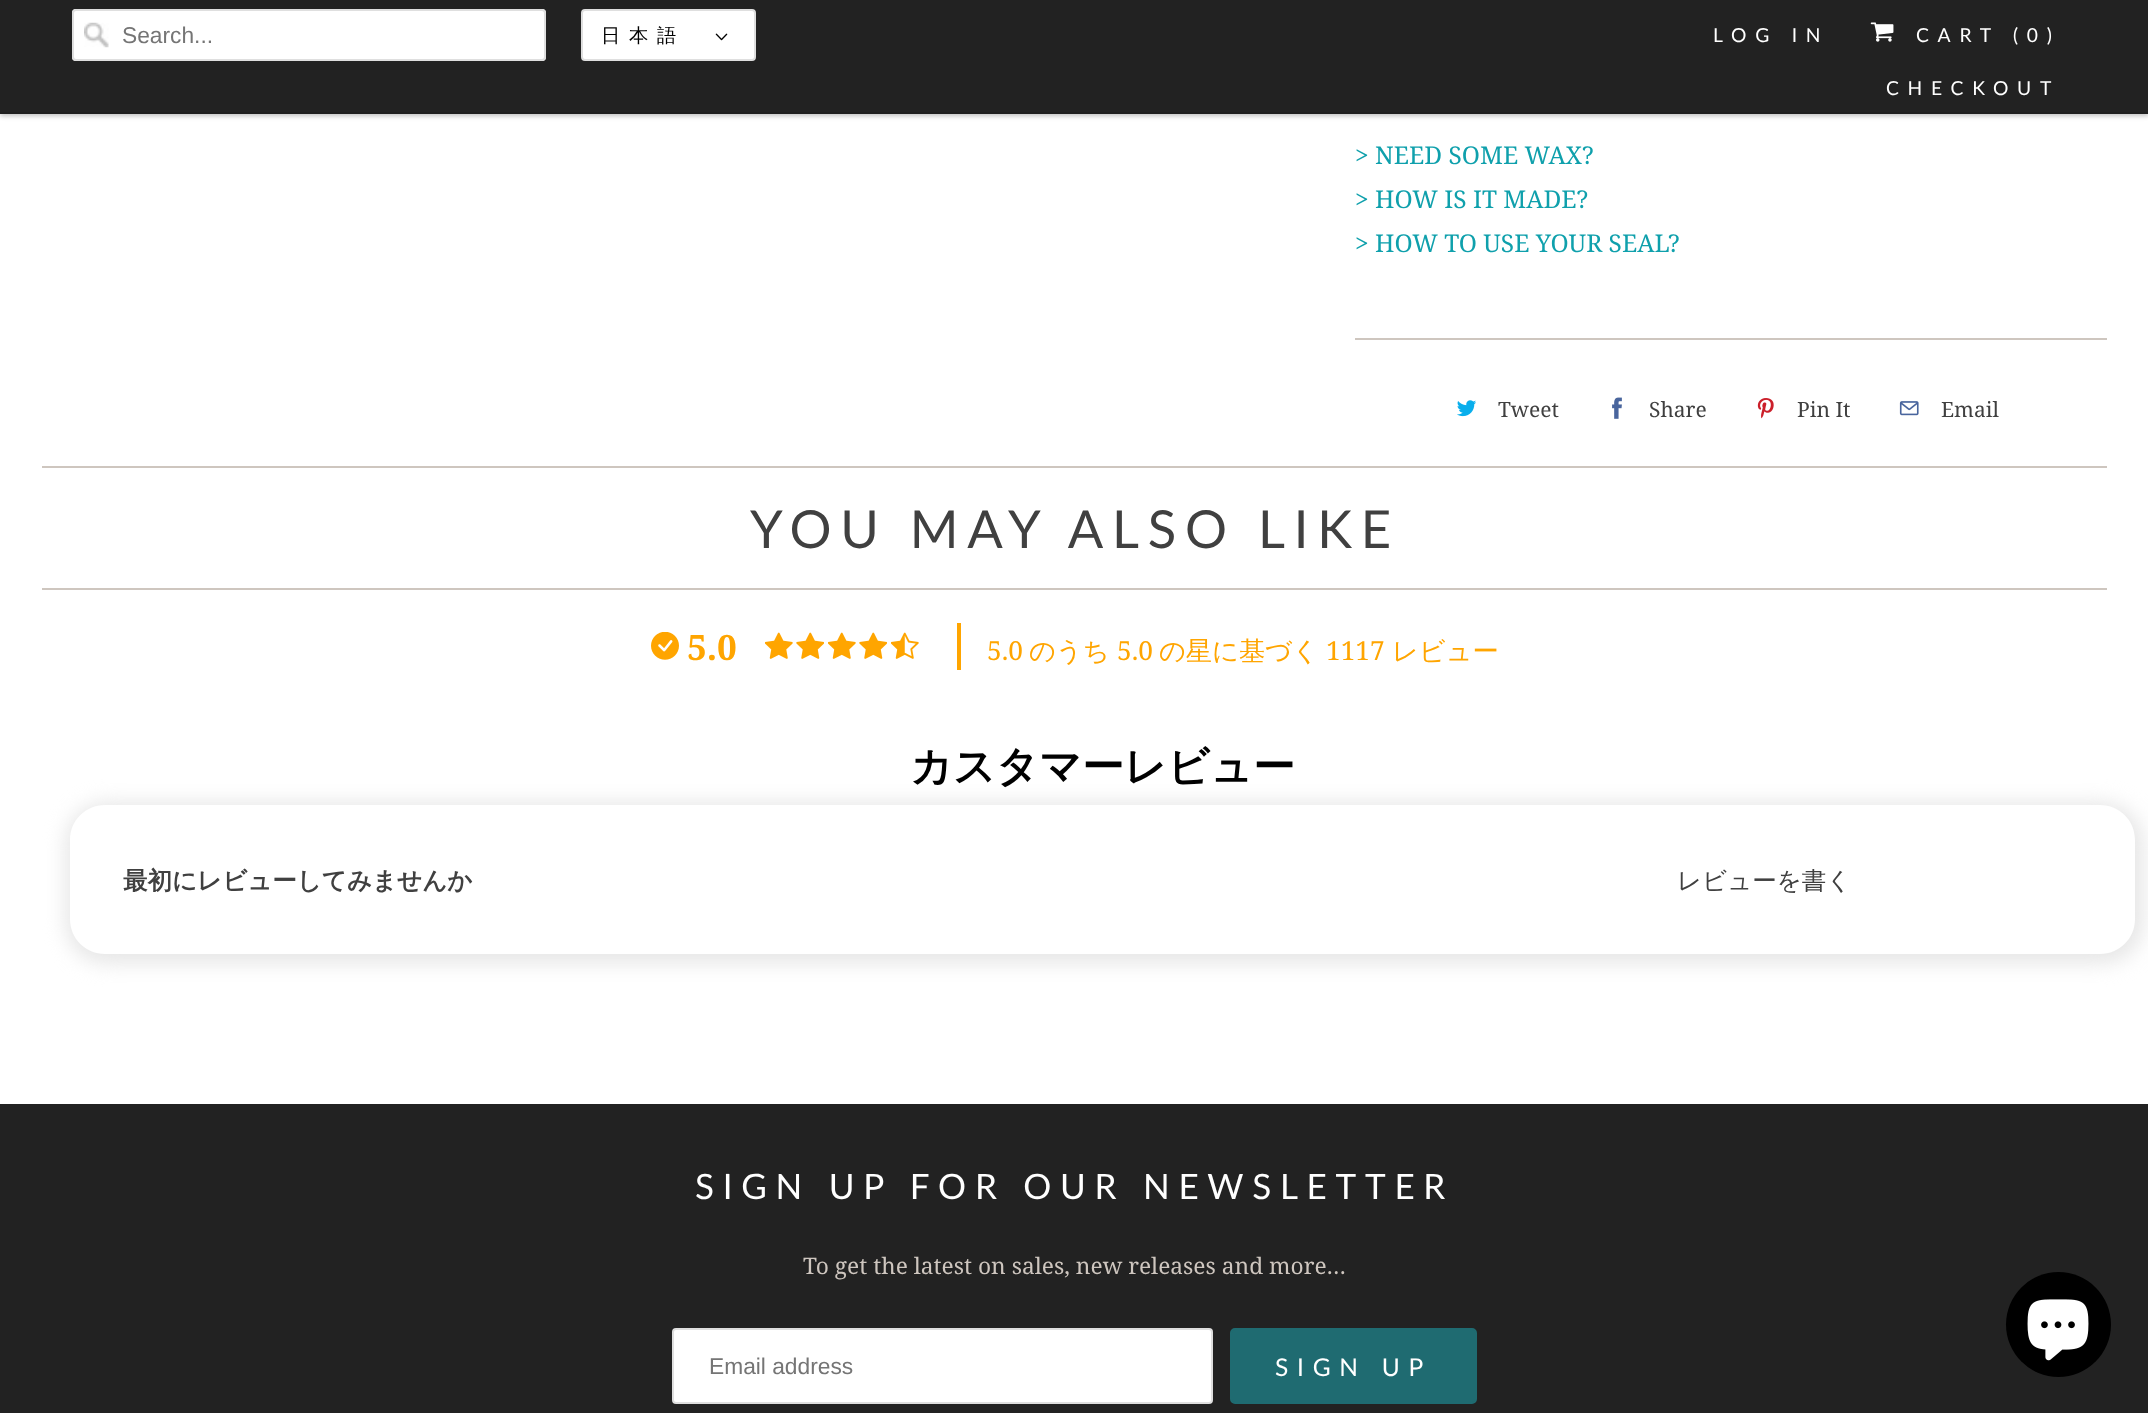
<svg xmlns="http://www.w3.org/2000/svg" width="2148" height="1413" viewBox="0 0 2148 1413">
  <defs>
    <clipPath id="clip1"><path d="M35 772H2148V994H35ZM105 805H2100C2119.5 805 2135 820.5 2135 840V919C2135 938.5 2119.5 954 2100 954H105C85.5 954 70 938.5 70 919V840C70 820.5 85.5 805 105 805Z" clip-rule="evenodd"/></clipPath>
  </defs>
  <rect width="100%" height="100%" fill="#fff"/>
  <path d="M0 2h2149v114H0z" fill="#00000040" filter="blur(2.5px)"/>
  <path d="M0 0h2148v112H0z" fill="#222"/>
  <path d="M0 112h2148v2H0z" fill="#1f1f1f"/>
  <rect x="72" y="9" width="474" height="52" rx="4" fill="#fff"/>
  <image x="84" y="22" width="25" height="26" href="img/1.png"/>
  <rect x="73" y="10" width="472" height="50" rx="3" fill="none" stroke="#dfdfdf" stroke-width="2"/>
  <rect x="582" y="10" width="173" height="50" rx="3" fill="#fff" stroke="#dfdfdf" stroke-width="2"/>
  <image x="715" y="33" width="13" height="8" href="img/2.png"/>
  <image x="1870" y="22" width="24" height="20" href="img/3.png"/>
  <path d="M1355 338h752v2H1355z" fill="#cec6bf"/>
  <image x="1457" y="400" width="19" height="17" href="img/4.png"/>
  <image x="1612" y="397" width="10" height="22" href="img/5.png"/>
  <image x="1757" y="398" width="17" height="21" href="img/6.png"/>
  <image x="1899" y="401" width="20" height="15" href="img/7.png"/>
  <path d="M42 466h2065v2H42z" fill="#cec6bf"/>
  <path d="M42 588h2065v2H42z" fill="#cec6bf"/>
  <image x="651" y="632" width="28" height="28" href="img/8.png"/>
  <path d="M957 623h4v47H957z" fill="#ffa500"/>
  <image x="765" y="632" width="28" height="27" href="img/9.png"/>
  <image x="796" y="632" width="28" height="27" href="img/10.png"/>
  <image x="828" y="632" width="28" height="27" href="img/9.png"/>
  <image x="859" y="632" width="28" height="27" href="img/10.png"/>
  <image x="891" y="632" width="28" height="27" href="img/11.png"/>
  <g clip-path="url(#clip1)">
    <rect x="65" y="802" width="2079" height="162" rx="42" fill="#e7e7e7" filter="blur(9.5px)"/>
  </g>
  <path d="M0 1104h2148v309H0z" fill="#222"/>
  <rect x="673" y="1329" width="539" height="74" rx="3" fill="#fff" stroke="#dfdfdf" stroke-width="2"/>
  <rect x="1231" y="1329" width="245" height="74" rx="4" fill="#1f6b71" stroke="#1f6b71" stroke-width="2"/>
  <circle cx="2058.5" cy="1324.5" r="52.5" fill="#000"/>
  <image x="2027" y="1299" width="62" height="62" href="img/12.png"/>
  <text x="122" y="43" font-family="Liberation Sans" font-size="22.75" fill="#757575">Search...</text>
  <text x="601" y="42" font-family="WenQuanYi Zen Hei" font-size="19.25" font-weight="500" letter-spacing="8.75" fill="#000">日本語</text>
  <g font-family="Lato" font-size="19.25" letter-spacing="8.75" fill="#fff">
    <text x="1713" y="42">LOG IN</text>
    <text x="1916" y="42">CART (0)</text>
    <text x="1886" y="95">CHECKOUT</text>
  </g>
  <g font-family="Noto Serif" font-size="24.5" fill="#0fa0ac">
    <text x="1355" y="164">&gt; NEED SOME WAX?</text>
    <text x="1355" y="208">&gt; HOW IS IT MADE?</text>
    <text x="1355" y="252">&gt; HOW TO USE YOUR SEAL?</text>
  </g>
  <g font-family="Noto Serif" font-size="21" fill="#404040">
    <text x="1498" y="417">Tweet</text>
    <text x="1649" y="417">Share</text>
    <text x="1797" y="417">Pin It</text>
    <text x="1941" y="417">Email</text>
  </g>
  <text x="750" y="548" font-family="Lato" font-size="52.5" letter-spacing="8.75" fill="#404040">YOU MAY ALSO LIKE</text>
  <text x="687" y="660" font-family="Noto Serif" font-size="35" font-weight="bold" fill="#ffa500">5.0</text>
  <text x="987" y="660" font-family="Noto Serif" font-size="26.25" fill="#ffa500">5.0</text>
  <text x="1029" y="660" font-family="WenQuanYi Zen Hei" font-size="26.25" font-weight="500" fill="#ffa500">のうち</text>
  <text x="1117" y="660" font-family="Noto Serif" font-size="26.25" fill="#ffa500">5.0</text>
  <text x="1159" y="660" font-family="WenQuanYi Zen Hei" font-size="26.25" font-weight="500" fill="#ffa500">の星に基づく</text>
  <text x="1326" y="660" font-family="Noto Serif" font-size="26.25" fill="#ffa500">1117</text>
  <text x="1392" y="660" font-family="WenQuanYi Zen Hei" font-size="26.25" font-weight="500" fill="#ffa500">レビュー</text>
  <text x="910" y="781" font-family="WenQuanYi Zen Hei" font-size="42" font-weight="bold" fill="#000">カスタマーレビュー</text>
  <text x="123" y="889" font-family="WenQuanYi Zen Hei" font-size="24.5" font-weight="bold" fill="#404040">最初にレビューしてみませんか</text>
  <text x="1677" y="889" font-family="WenQuanYi Zen Hei" font-size="24.5" font-weight="500" fill="#404040">レビューを書く</text>
  <text x="695" y="1199" font-family="Lato" font-size="35" letter-spacing="8.75" fill="#fff">SIGN UP FOR OUR NEWSLETTER</text>
  <text x="803" y="1274" font-family="Noto Serif" font-size="22.75" fill="#cec6bf">To get the latest on sales, new releases and more…</text>
  <text x="709" y="1374" font-family="Liberation Sans" font-size="22.75" fill="#757575">Email address</text>
  <text x="1275" y="1376" font-family="Lato" font-size="24.5" letter-spacing="8.75" fill="#fff">SIGN UP</text>
</svg>
